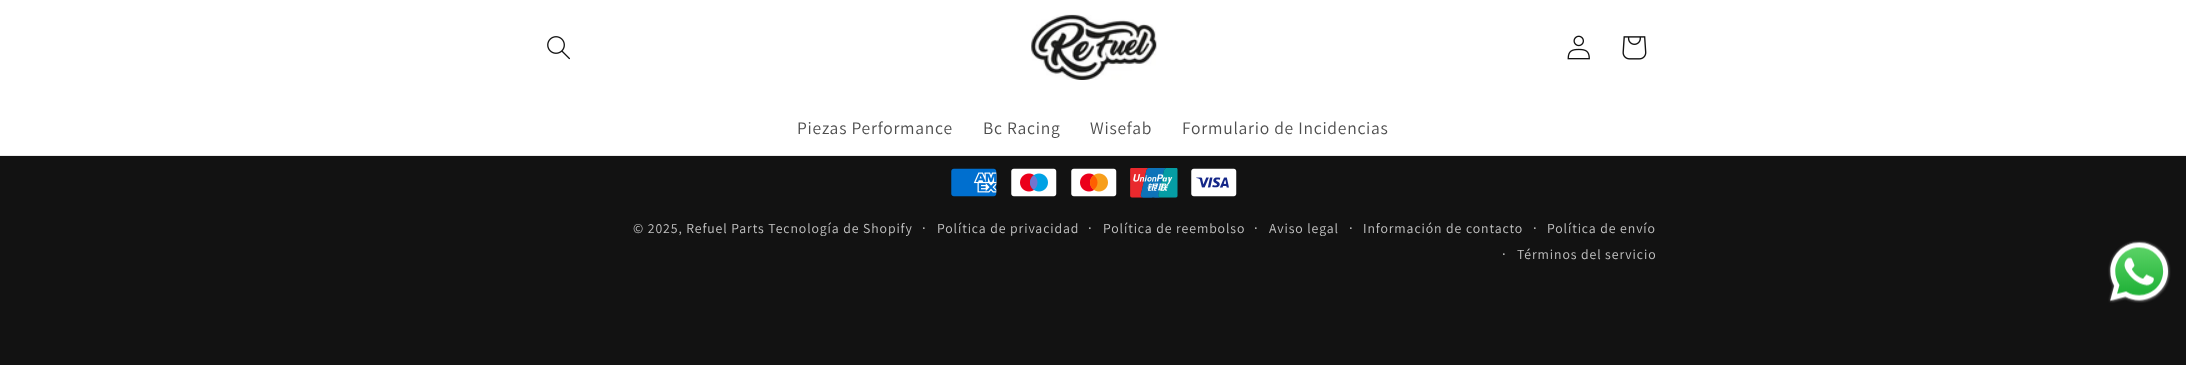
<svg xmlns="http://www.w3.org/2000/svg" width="2186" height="365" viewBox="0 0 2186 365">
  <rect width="100%" height="100%" fill="#121212"/>
  <path d="M0 0h2186v155H0z" fill="#fff"/>
  <path d="M0 155h2186v1H0z" fill="#ececec"/>
  <image x="547" y="36" width="23" height="24" href="img/1.png"/>
  <image x="1031" y="14" width="126" height="66" href="img/2.png"/>
  <image x="1567" y="35" width="23" height="25" href="img/3.png"/>
  <image x="1622" y="36" width="25" height="24" href="img/4.png"/>
  <image x="951" y="168" width="46" height="29" href="img/5.png"/>
  <image x="1011" y="168" width="46" height="29" href="img/6.png"/>
  <image x="1071" y="168" width="46" height="29" href="img/7.png"/>
  <image x="1130" y="168" width="48" height="30" href="img/8.png"/>
  <image x="1191" y="168" width="46" height="29" href="img/9.png"/>
  <image x="2108" y="240" width="63" height="63" href="img/10.png"/>
  <g font-family="Assistant" font-size="17.5" letter-spacing="0.75" fill="#4d4d4d">
    <text x="797" y="134">Piezas Performance</text>
    <text x="983" y="134">Bc Racing</text>
    <text x="1090" y="134">Wisefab</text>
    <text x="1182" y="134">Formulario de Incidencias</text>
  </g>
  <text x="633" y="233" font-family="Assistant" font-size="13.75" letter-spacing="0.9" fill="#c4c4c4">© 2025, Refuel Parts Tecnología de Shopify</text>
  <text x="922" y="233" font-family="Assistant" font-size="15" letter-spacing="0.9" fill="#c4c4c4">·</text>
  <text x="937" y="233" font-family="Assistant" font-size="13.75" letter-spacing="0.9" fill="#c4c4c4">Política de privacidad</text>
  <text x="1088" y="233" font-family="Assistant" font-size="15" letter-spacing="0.9" fill="#c4c4c4">·</text>
  <text x="1103" y="233" font-family="Assistant" font-size="13.75" letter-spacing="0.9" fill="#c4c4c4">Política de reembolso</text>
  <text x="1254" y="233" font-family="Assistant" font-size="15" letter-spacing="0.9" fill="#c4c4c4">·</text>
  <text x="1269" y="233" font-family="Assistant" font-size="13.75" letter-spacing="0.9" fill="#c4c4c4">Aviso legal</text>
  <text x="1349" y="233" font-family="Assistant" font-size="15" letter-spacing="0.9" fill="#c4c4c4">·</text>
  <text x="1363" y="233" font-family="Assistant" font-size="13.75" letter-spacing="0.9" fill="#c4c4c4">Información de contacto</text>
  <text x="1533" y="233" font-family="Assistant" font-size="15" letter-spacing="0.9" fill="#c4c4c4">·</text>
  <text x="1547" y="233" font-family="Assistant" font-size="13.75" letter-spacing="0.9" fill="#c4c4c4">Política de envío</text>
  <text x="1502" y="259" font-family="Assistant" font-size="15" letter-spacing="0.9" fill="#c4c4c4">·</text>
  <text x="1517" y="259" font-family="Assistant" font-size="13.75" letter-spacing="0.9" fill="#c4c4c4">Términos del servicio</text>
</svg>
